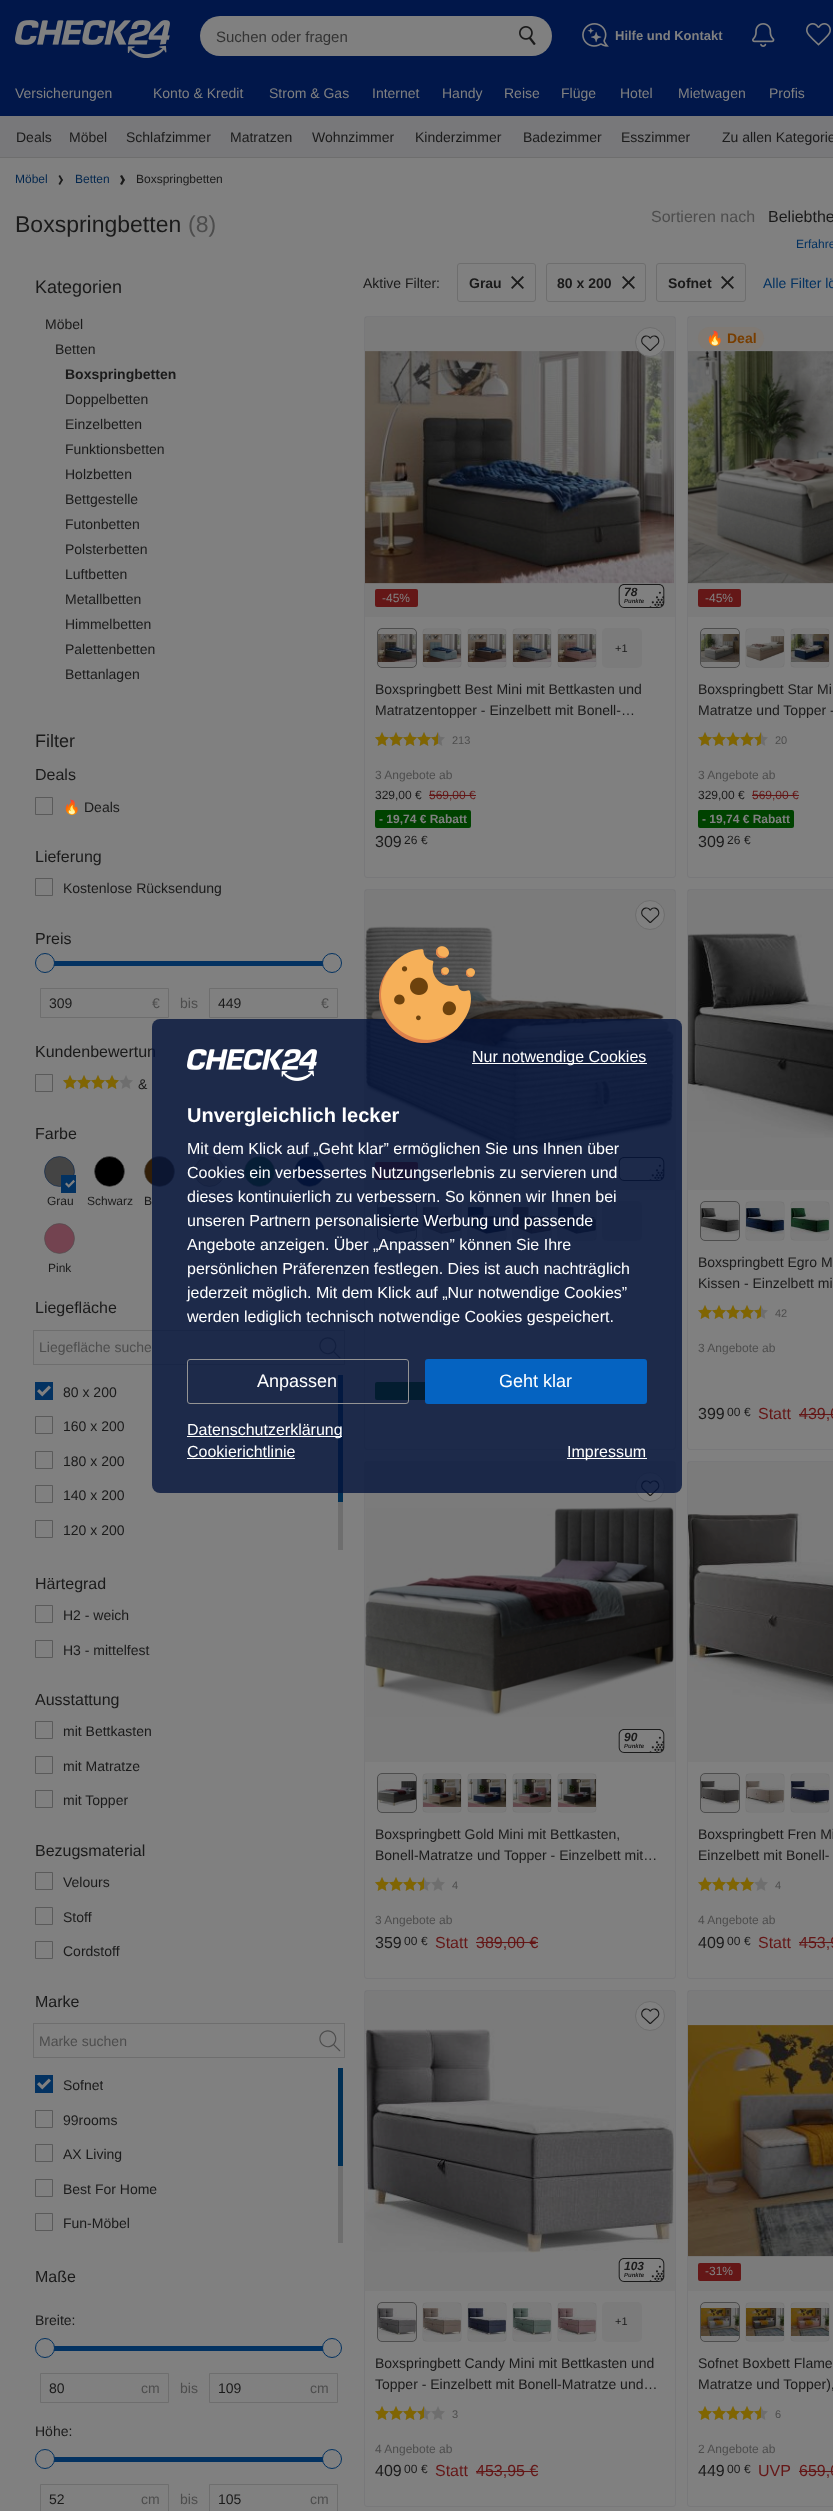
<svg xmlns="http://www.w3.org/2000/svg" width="833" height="2511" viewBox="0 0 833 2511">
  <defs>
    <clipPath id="clip1"><path d="M63 2076h40v19H63z"/></clipPath>
  </defs>
  <rect width="100%" height="100%" fill="#808080"/>
  <path d="M0 0h833v116H0z" fill="#01174a"/>
  <image x="15" y="20" width="155" height="38" href="img/1.png"/>
  <rect x="200" y="16" width="352" height="40" rx="20" fill="#808080"/>
  <image x="519" y="26" width="17" height="19" href="img/2.png"/>
  <image x="582" y="23" width="27" height="24" href="img/3.png"/>
  <image x="752" y="23" width="23" height="24" href="img/4.png"/>
  <image x="806" y="23" width="25" height="23" href="img/5.png"/>
  <path d="M0 116h833v41H0z" fill="#78787a"/>
  <path d="M0 157h833v1H0z" fill="#6e6e6e"/>
  <path d="M60 175L63 180L61.5 181L58.5 176Z" fill="#1a1a1a"/>
  <path d="M58.5 184L61.5 179L63 180L60 185Z" fill="#1a1a1a"/>
  <path d="M122 175L125 180L123 181L120 176Z" fill="#1a1a1a"/>
  <path d="M120 184L123 179L125 180L122 185Z" fill="#1a1a1a"/>
  <path d="M35.5 797.5h17v17H35.5z" fill="none" stroke="#5a5a5a"/>
  <path d="M35.5 878.5h17v17H35.5z" fill="none" stroke="#5a5a5a"/>
  <path d="M54 961h275v5H54z" fill="#033261"/>
  <circle cx="45" cy="963" r="9.5" fill="#808080" stroke="#033261"/>
  <circle cx="332" cy="963" r="9.5" fill="#808080" stroke="#033261"/>
  <path d="M40.5 988.5h128v29H40.5z" fill="none" stroke="#6e6e6e"/>
  <path d="M209.5 988.5h128v29H209.5z" fill="none" stroke="#6e6e6e"/>
  <path d="M35.5 1074.5h17v17H35.5z" fill="none" stroke="#5a5a5a"/>
  <image x="63" y="1075" width="70" height="14" href="img/8.png"/>
  <image x="63" y="1075" width="56" height="14" href="img/9.png"/>
  <circle cx="209.5" cy="1171.5" r="15" fill="#736d64" stroke="#4d4d4d" stroke-width="0.6"/>
  <circle cx="259.5" cy="1171.5" r="15" fill="#12481e" stroke="#4d4d4d" stroke-width="0.6"/>
  <circle cx="309.5" cy="1171.5" r="15" fill="#07162f" stroke="#4d4d4d" stroke-width="0.6"/>
  <circle cx="59.5" cy="1171.5" r="15" fill="#444" stroke="#06254d" stroke-width="0.6"/>
  <path d="M61 1175h15v18H61z" fill="#033261"/>
  <image x="65" y="1179" width="10" height="9" href="img/10.png"/>
  <circle cx="109.5" cy="1171.5" r="15" fill="#000" stroke="#4d4d4d" stroke-width="0.6"/>
  <circle cx="159.5" cy="1171.5" r="15" fill="#311e08" stroke="#4d4d4d" stroke-width="0.6"/>
  <circle cx="59.5" cy="1238.5" r="15" fill="#734350" stroke="#4d4d4d" stroke-width="0.6"/>
  <path d="M33 1330h312v1H33z" fill="#6e6e6e"/>
  <path d="M33 1364h284v1H33z" fill="#6e6e6e"/>
  <path d="M33 1330h1v35H33z" fill="#6e6e6e"/>
  <path d="M344 1330h1v35H344z" fill="#6e6e6e"/>
  <path d="M317 1364h28v1H317z" fill="#6e6e6e"/>
  <image x="319" y="1337" width="22" height="22" href="img/11.png"/>
  <path d="M35 1382h18v18H35z" fill="#033261"/>
  <image x="37" y="1385" width="14" height="12" href="img/12.png"/>
  <path d="M35.5 1416.5h17v17H35.5z" fill="none" stroke="#5a5a5a"/>
  <path d="M35.5 1451.5h17v17H35.5z" fill="none" stroke="#5a5a5a"/>
  <path d="M35.5 1485.5h17v17H35.5z" fill="none" stroke="#5a5a5a"/>
  <path d="M35.5 1520.5h17v17H35.5z" fill="none" stroke="#5a5a5a"/>
  <path d="M338 1502h5v48H338z" fill="#6e6e6e"/>
  <path d="M338 1375h5v127H338z" fill="#002f54"/>
  <path d="M35.5 1605.5h17v17H35.5z" fill="none" stroke="#5a5a5a"/>
  <path d="M35.5 1640.5h17v17H35.5z" fill="none" stroke="#5a5a5a"/>
  <path d="M35.5 1721.5h17v17H35.5z" fill="none" stroke="#5a5a5a"/>
  <path d="M35.5 1756.5h17v17H35.5z" fill="none" stroke="#5a5a5a"/>
  <path d="M35.5 1790.5h17v17H35.5z" fill="none" stroke="#5a5a5a"/>
  <path d="M35.5 1872.5h17v17H35.5z" fill="none" stroke="#5a5a5a"/>
  <path d="M35.5 1907.5h17v17H35.5z" fill="none" stroke="#5a5a5a"/>
  <path d="M35.5 1941.5h17v17H35.5z" fill="none" stroke="#5a5a5a"/>
  <path d="M33 2023h312v1H33z" fill="#6e6e6e"/>
  <path d="M33 2057h284v1H33z" fill="#6e6e6e"/>
  <path d="M33 2023h1v35H33z" fill="#6e6e6e"/>
  <path d="M344 2023h1v35H344z" fill="#6e6e6e"/>
  <path d="M317 2057h28v1H317z" fill="#6e6e6e"/>
  <image x="319" y="2030" width="22" height="22" href="img/11.png"/>
  <path d="M35 2075h18v18H35z" fill="#033261"/>
  <image x="37" y="2078" width="14" height="12" href="img/12.png"/>
  <path d="M35.5 2110.5h17v17H35.5z" fill="none" stroke="#5a5a5a"/>
  <path d="M35.5 2144.5h17v17H35.5z" fill="none" stroke="#5a5a5a"/>
  <path d="M35.5 2179.5h17v17H35.5z" fill="none" stroke="#5a5a5a"/>
  <path d="M35.5 2213.5h17v17H35.5z" fill="none" stroke="#5a5a5a"/>
  <path d="M338 2166h5v77H338z" fill="#6e6e6e"/>
  <path d="M338 2068h5v98H338z" fill="#002f54"/>
  <path d="M54 2346h275v5H54z" fill="#033261"/>
  <circle cx="45" cy="2348" r="9.5" fill="#808080" stroke="#033261"/>
  <circle cx="332" cy="2348" r="9.5" fill="#808080" stroke="#033261"/>
  <path d="M40.5 2373.5h128v29H40.5z" fill="none" stroke="#6e6e6e"/>
  <path d="M209.5 2373.5h128v29H209.5z" fill="none" stroke="#6e6e6e"/>
  <path d="M54 2457h275v5H54z" fill="#033261"/>
  <circle cx="45" cy="2459" r="9.5" fill="#808080" stroke="#033261"/>
  <circle cx="332" cy="2459" r="9.5" fill="#808080" stroke="#033261"/>
  <path d="M40.5 2484.5h128v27H40.5z" fill="none" stroke="#6e6e6e"/>
  <path d="M209.5 2484.5h128v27H209.5z" fill="none" stroke="#6e6e6e"/>
  <rect x="457.5" y="263.5" width="78" height="38" rx="2.5" fill="none" stroke="#6e6e6e"/>
  <image x="511" y="276" width="13" height="13" href="img/13.png"/>
  <rect x="546.5" y="263.5" width="99" height="38" rx="2.5" fill="none" stroke="#6e6e6e"/>
  <image x="622" y="276" width="13" height="13" href="img/13.png"/>
  <rect x="656.5" y="263.5" width="89" height="38" rx="2.5" fill="none" stroke="#6e6e6e"/>
  <image x="721" y="276" width="13" height="13" href="img/13.png"/>
  <rect x="364.5" y="316.5" width="311" height="561" rx="2.5" fill="none" stroke="#78787a"/>
  <image x="365" y="351" width="309" height="233" href="img/14.png"/>
  <path d="M365 317h310v300H365z" fill="#0000000a"/>
  <circle cx="650" cy="342" r="14.5" fill="#808080" stroke="#6e6e6e"/>
  <image x="641" y="335" width="19" height="16" href="img/15.png"/>
  <rect x="375" y="589" width="43" height="18" rx="2" fill="#641717"/>
  <image x="618" y="584" width="47" height="24" href="img/16.png"/>
  <image x="378" y="634" width="38" height="28" href="img/17.png"/>
  <rect x="377.5" y="628.5" width="39" height="39" rx="4.5" fill="none" stroke="#4d4d4d"/>
  <path d="M378 629h38v38H378z" fill="#0000000a"/>
  <image x="423" y="634" width="38" height="28" href="img/18.png"/>
  <rect x="422.5" y="628.5" width="39" height="39" rx="4.5" fill="none" stroke="#7b7b7b"/>
  <path d="M423 629h38v38H423z" fill="#0000000a"/>
  <image x="468" y="634" width="38" height="28" href="img/19.png"/>
  <rect x="467.5" y="628.5" width="39" height="39" rx="4.5" fill="none" stroke="#7b7b7b"/>
  <path d="M468 629h38v38H468z" fill="#0000000a"/>
  <image x="513" y="634" width="38" height="28" href="img/20.png"/>
  <rect x="512.5" y="628.5" width="39" height="39" rx="4.5" fill="none" stroke="#7b7b7b"/>
  <path d="M513 629h38v38H513z" fill="#0000000a"/>
  <image x="558" y="634" width="38" height="28" href="img/21.png"/>
  <rect x="557.5" y="628.5" width="39" height="39" rx="4.5" fill="none" stroke="#7b7b7b"/>
  <path d="M558 629h38v38H558z" fill="#0000000a"/>
  <rect x="602" y="628" width="40" height="40" rx="5" fill="#7b7b7b"/>
  <image x="375" y="732" width="70" height="14" href="img/8.png"/>
  <image x="375" y="732" width="63" height="14" href="img/22.png"/>
  <path d="M429 795h47v1H429z" fill="#641717"/>
  <rect x="375" y="810" width="96" height="18" rx="2" fill="#004200"/>
  <rect x="687.5" y="316.5" width="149" height="561" rx="2.5" fill="none" stroke="#78787a"/>
  <image x="688" y="351" width="145" height="233" href="img/23.png"/>
  <path d="M688 317h145v300H688z" fill="#0000000a"/>
  <rect x="698" y="327" width="66" height="23" rx="11.5" fill="#7f7973"/>
  <rect x="698" y="589" width="43" height="18" rx="2" fill="#641717"/>
  <image x="701" y="634" width="38" height="28" href="img/24.png"/>
  <rect x="700.5" y="628.5" width="39" height="39" rx="4.5" fill="none" stroke="#4d4d4d"/>
  <path d="M701 629h38v38H701z" fill="#0000000a"/>
  <image x="746" y="636" width="38" height="25" href="img/25.png"/>
  <rect x="745.5" y="628.5" width="39" height="39" rx="4.5" fill="none" stroke="#7b7b7b"/>
  <path d="M746 629h38v38H746z" fill="#0000000a"/>
  <image x="791" y="634" width="38" height="28" href="img/26.png"/>
  <rect x="790.5" y="628.5" width="39" height="39" rx="4.5" fill="none" stroke="#7b7b7b"/>
  <path d="M791 629h38v38H791z" fill="#0000000a"/>
  <image x="698" y="732" width="70" height="14" href="img/8.png"/>
  <image x="698" y="732" width="63" height="14" href="img/22.png"/>
  <path d="M752 795h47v1H752z" fill="#641717"/>
  <rect x="698" y="810" width="96" height="18" rx="2" fill="#004200"/>
  <rect x="364.5" y="889.5" width="311" height="560" rx="2.5" fill="none" stroke="#78787a"/>
  <image x="365" y="926" width="309" height="228" href="img/27.png"/>
  <path d="M365 890h310v300H365z" fill="#0000000a"/>
  <circle cx="650" cy="915" r="14.5" fill="#808080" stroke="#6e6e6e"/>
  <image x="641" y="907" width="19" height="16" href="img/15.png"/>
  <rect x="375" y="1162" width="43" height="18" rx="2" fill="#641717"/>
  <image x="618" y="1157" width="47" height="24" href="img/16.png"/>
  <image x="378" y="1207" width="38" height="27" href="img/28.png"/>
  <rect x="377.5" y="1201.5" width="39" height="39" rx="4.5" fill="none" stroke="#4d4d4d"/>
  <path d="M378 1202h38v38H378z" fill="#0000000a"/>
  <image x="423" y="1207" width="38" height="27" href="img/29.png"/>
  <rect x="422.5" y="1201.5" width="39" height="39" rx="4.5" fill="none" stroke="#7b7b7b"/>
  <path d="M423 1202h38v38H423z" fill="#0000000a"/>
  <image x="468" y="1207" width="38" height="27" href="img/30.png"/>
  <rect x="467.5" y="1201.5" width="39" height="39" rx="4.5" fill="none" stroke="#7b7b7b"/>
  <path d="M468 1202h38v38H468z" fill="#0000000a"/>
  <image x="513" y="1207" width="38" height="27" href="img/31.png"/>
  <rect x="512.5" y="1201.5" width="39" height="39" rx="4.5" fill="none" stroke="#7b7b7b"/>
  <path d="M513 1202h38v38H513z" fill="#0000000a"/>
  <image x="558" y="1207" width="38" height="27" href="img/32.png"/>
  <rect x="557.5" y="1201.5" width="39" height="39" rx="4.5" fill="none" stroke="#7b7b7b"/>
  <path d="M558 1202h38v38H558z" fill="#0000000a"/>
  <rect x="602" y="1201" width="40" height="40" rx="5" fill="#7b7b7b"/>
  <rect x="375" y="1382" width="96" height="18" rx="2" fill="#004200"/>
  <rect x="687.5" y="889.5" width="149" height="560" rx="2.5" fill="none" stroke="#78787a"/>
  <image x="688" y="933" width="145" height="205" href="img/33.png"/>
  <path d="M688 890h145v300H688z" fill="#0000000a"/>
  <image x="701" y="1208" width="38" height="26" href="img/34.png"/>
  <rect x="700.5" y="1201.5" width="39" height="39" rx="4.5" fill="none" stroke="#4d4d4d"/>
  <path d="M701 1202h38v38H701z" fill="#0000000a"/>
  <image x="746" y="1208" width="38" height="26" href="img/35.png"/>
  <rect x="745.5" y="1201.5" width="39" height="39" rx="4.5" fill="none" stroke="#7b7b7b"/>
  <path d="M746 1202h38v38H746z" fill="#0000000a"/>
  <image x="791" y="1208" width="38" height="26" href="img/36.png"/>
  <rect x="790.5" y="1201.5" width="39" height="39" rx="4.5" fill="none" stroke="#7b7b7b"/>
  <path d="M791 1202h38v38H791z" fill="#0000000a"/>
  <image x="698" y="1305" width="70" height="14" href="img/8.png"/>
  <image x="698" y="1305" width="63" height="14" href="img/22.png"/>
  <path d="M799 1414h34v1H799z" fill="#641717"/>
  <rect x="364.5" y="1461.5" width="311" height="517" rx="2.5" fill="none" stroke="#78787a"/>
  <image x="365" y="1507" width="309" height="210" href="img/37.png"/>
  <path d="M365 1462h310v300H365z" fill="#0000000a"/>
  <circle cx="650" cy="1487" r="14.5" fill="#808080" stroke="#6e6e6e"/>
  <image x="641" y="1480" width="19" height="16" href="img/15.png"/>
  <image x="618" y="1729" width="47" height="24" href="img/16.png"/>
  <image x="378" y="1781" width="38" height="25" href="img/38.png"/>
  <rect x="377.5" y="1773.5" width="39" height="39" rx="4.5" fill="none" stroke="#4d4d4d"/>
  <path d="M378 1774h38v38H378z" fill="#0000000a"/>
  <image x="423" y="1779" width="38" height="28" href="img/39.png"/>
  <rect x="422.5" y="1773.5" width="39" height="39" rx="4.5" fill="none" stroke="#7b7b7b"/>
  <path d="M423 1774h38v38H423z" fill="#0000000a"/>
  <image x="468" y="1779" width="38" height="28" href="img/40.png"/>
  <rect x="467.5" y="1773.5" width="39" height="39" rx="4.5" fill="none" stroke="#7b7b7b"/>
  <path d="M468 1774h38v38H468z" fill="#0000000a"/>
  <image x="513" y="1779" width="38" height="28" href="img/41.png"/>
  <rect x="512.5" y="1773.5" width="39" height="39" rx="4.5" fill="none" stroke="#7b7b7b"/>
  <path d="M513 1774h38v38H513z" fill="#0000000a"/>
  <image x="558" y="1779" width="38" height="28" href="img/42.png"/>
  <rect x="557.5" y="1773.5" width="39" height="39" rx="4.5" fill="none" stroke="#7b7b7b"/>
  <path d="M558 1774h38v38H558z" fill="#0000000a"/>
  <image x="375" y="1877" width="70" height="14" href="img/8.png"/>
  <image x="375" y="1877" width="49" height="14" href="img/43.png"/>
  <path d="M476 1942h62v1H476z" fill="#641717"/>
  <rect x="687.5" y="1461.5" width="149" height="517" rx="2.5" fill="none" stroke="#78787a"/>
  <image x="688" y="1513" width="145" height="191" href="img/44.png"/>
  <path d="M688 1462h145v300H688z" fill="#0000000a"/>
  <image x="701" y="1781" width="38" height="24" href="img/45.png"/>
  <rect x="700.5" y="1773.5" width="39" height="39" rx="4.5" fill="none" stroke="#4d4d4d"/>
  <path d="M701 1774h38v38H701z" fill="#0000000a"/>
  <image x="746" y="1781" width="38" height="24" href="img/46.png"/>
  <rect x="745.5" y="1773.5" width="39" height="39" rx="4.5" fill="none" stroke="#7b7b7b"/>
  <path d="M746 1774h38v38H746z" fill="#0000000a"/>
  <image x="791" y="1781" width="38" height="24" href="img/47.png"/>
  <rect x="790.5" y="1773.5" width="39" height="39" rx="4.5" fill="none" stroke="#7b7b7b"/>
  <path d="M791 1774h38v38H791z" fill="#0000000a"/>
  <image x="698" y="1877" width="70" height="14" href="img/8.png"/>
  <image x="698" y="1877" width="56" height="14" href="img/9.png"/>
  <path d="M799 1942h34v1H799z" fill="#641717"/>
  <rect x="364.5" y="1990.5" width="311" height="516" rx="2.5" fill="none" stroke="#78787a"/>
  <image x="365" y="2029" width="309" height="224" href="img/48.png"/>
  <path d="M365 1991h310v300H365z" fill="#0000000a"/>
  <circle cx="650" cy="2016" r="14.5" fill="#808080" stroke="#6e6e6e"/>
  <image x="641" y="2008" width="19" height="16" href="img/15.png"/>
  <image x="618" y="2258" width="47" height="24" href="img/16.png"/>
  <image x="378" y="2308" width="38" height="27" href="img/49.png"/>
  <rect x="377.5" y="2302.5" width="39" height="39" rx="4.5" fill="none" stroke="#4d4d4d"/>
  <path d="M378 2303h38v38H378z" fill="#0000000a"/>
  <image x="423" y="2308" width="38" height="27" href="img/50.png"/>
  <rect x="422.5" y="2302.5" width="39" height="39" rx="4.5" fill="none" stroke="#7b7b7b"/>
  <path d="M423 2303h38v38H423z" fill="#0000000a"/>
  <image x="468" y="2308" width="38" height="27" href="img/51.png"/>
  <rect x="467.5" y="2302.5" width="39" height="39" rx="4.5" fill="none" stroke="#7b7b7b"/>
  <path d="M468 2303h38v38H468z" fill="#0000000a"/>
  <image x="513" y="2308" width="38" height="27" href="img/52.png"/>
  <rect x="512.5" y="2302.5" width="39" height="39" rx="4.5" fill="none" stroke="#7b7b7b"/>
  <path d="M513 2303h38v38H513z" fill="#0000000a"/>
  <image x="558" y="2308" width="38" height="27" href="img/53.png"/>
  <rect x="557.5" y="2302.5" width="39" height="39" rx="4.5" fill="none" stroke="#7b7b7b"/>
  <path d="M558 2303h38v38H558z" fill="#0000000a"/>
  <rect x="602" y="2302" width="40" height="40" rx="5" fill="#7b7b7b"/>
  <image x="375" y="2406" width="70" height="14" href="img/8.png"/>
  <image x="375" y="2406" width="49" height="14" href="img/43.png"/>
  <path d="M476 2471h62v1H476z" fill="#641717"/>
  <rect x="687.5" y="1990.5" width="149" height="516" rx="2.5" fill="none" stroke="#78787a"/>
  <image x="688" y="2025" width="145" height="232" href="img/54.png"/>
  <path d="M688 1991h145v300H688z" fill="#0000000a"/>
  <rect x="698" y="2263" width="43" height="18" rx="2" fill="#641717"/>
  <image x="701" y="2308" width="38" height="28" href="img/55.png"/>
  <rect x="700.5" y="2302.5" width="39" height="39" rx="4.5" fill="none" stroke="#4d4d4d"/>
  <path d="M701 2303h38v38H701z" fill="#0000000a"/>
  <image x="746" y="2308" width="38" height="28" href="img/56.png"/>
  <rect x="745.5" y="2302.5" width="39" height="39" rx="4.5" fill="none" stroke="#7b7b7b"/>
  <path d="M746 2303h38v38H746z" fill="#0000000a"/>
  <image x="791" y="2308" width="38" height="28" href="img/57.png"/>
  <rect x="790.5" y="2302.5" width="39" height="39" rx="4.5" fill="none" stroke="#7b7b7b"/>
  <path d="M791 2303h38v38H791z" fill="#0000000a"/>
  <image x="698" y="2406" width="70" height="14" href="img/8.png"/>
  <image x="698" y="2406" width="63" height="14" href="img/22.png"/>
  <path d="M799 2471h34v1H799z" fill="#641717"/>
  <text x="216" y="42" font-family="Liberation Sans" font-size="15" fill="#333">Suchen oder fragen</text>
  <text x="615" y="40" font-family="Liberation Sans" font-size="13" font-weight="bold" fill="#808080">Hilfe und Kontakt</text>
  <g font-family="Liberation Sans" font-size="14" fill="#808080">
    <text x="15" y="98">Versicherungen</text>
    <text x="153" y="98">Konto &amp; Kredit</text>
    <text x="269" y="98">Strom &amp; Gas</text>
    <text x="372" y="98">Internet</text>
    <text x="442" y="98">Handy</text>
    <text x="504" y="98">Reise</text>
    <text x="561" y="98">Flüge</text>
    <text x="620" y="98">Hotel</text>
    <text x="678" y="98">Mietwagen</text>
    <text x="769" y="98">Profis</text>
  </g>
  <g font-family="Liberation Sans" font-size="14" fill="#1a1a1a">
    <text x="16" y="142">Deals</text>
    <text x="69" y="142">Möbel</text>
    <text x="126" y="142">Schlafzimmer</text>
    <text x="230" y="142">Matratzen</text>
    <text x="312" y="142">Wohnzimmer</text>
    <text x="415" y="142">Kinderzimmer</text>
    <text x="523" y="142">Badezimmer</text>
    <text x="621" y="142">Esszimmer</text>
    <text x="722" y="142">Zu allen Kategorie</text>
  </g>
  <g font-family="Liberation Sans" font-size="12" fill="#03274e">
    <text x="15" y="183">Möbel</text>
    <text x="75" y="183">Betten</text>
  </g>
  <text x="136" y="183" font-family="Liberation Sans" font-size="12" fill="#1a1a1a">Boxspringbetten</text>
  <text x="15" y="232" font-family="Liberation Sans" font-size="23" fill="#1a1a1a">Boxspringbetten</text>
  <text x="188" y="232" font-family="Liberation Sans" font-size="23" fill="#4d4d4d">(8)</text>
  <text x="651" y="222" font-family="Liberation Sans" font-size="16" fill="#4d4d4d">Sortieren nach</text>
  <text x="768" y="222" font-family="Liberation Sans" font-size="16" fill="#1a1a1a">Beliebthe</text>
  <text x="796" y="248" font-family="Liberation Sans" font-size="12" fill="#033261">Erfahre</text>
  <text x="35" y="293" font-family="Liberation Sans" font-size="18" fill="#1a1a1a">Kategorien</text>
  <g font-family="Liberation Sans" font-size="14" fill="#1a1a1a">
    <text x="45" y="329">Möbel</text>
    <text x="55" y="354">Betten</text>
  </g>
  <text x="65" y="379" font-family="Liberation Sans" font-size="14" font-weight="bold" fill="#1a1a1a">Boxspringbetten</text>
  <g font-family="Liberation Sans" font-size="14" fill="#1a1a1a">
    <text x="65" y="404">Doppelbetten</text>
    <text x="65" y="429">Einzelbetten</text>
    <text x="65" y="454">Funktionsbetten</text>
    <text x="65" y="479">Holzbetten</text>
    <text x="65" y="504">Bettgestelle</text>
    <text x="65" y="529">Futonbetten</text>
    <text x="65" y="554">Polsterbetten</text>
    <text x="65" y="579">Luftbetten</text>
    <text x="65" y="604">Metallbetten</text>
    <text x="65" y="629">Himmelbetten</text>
    <text x="65" y="654">Palettenbetten</text>
    <text x="65" y="679">Bettanlagen</text>
  </g>
  <text x="35" y="747" font-family="Liberation Sans" font-size="18" fill="#1a1a1a">Filter</text>
  <text x="35" y="780" font-family="Liberation Sans" font-size="16" fill="#1a1a1a">Deals</text>
  <text x="63" y="812" font-family="Noto Color Emoji" font-size="14" fill="#1a1a1a">🔥</text>
  <text x="84" y="812" font-family="Liberation Sans" font-size="14" fill="#1a1a1a">Deals</text>
  <text x="35" y="862" font-family="Liberation Sans" font-size="16" fill="#1a1a1a">Lieferung</text>
  <text x="63" y="893" font-family="Liberation Sans" font-size="14" fill="#1a1a1a">Kostenlose Rücksendung</text>
  <text x="35" y="944" font-family="Liberation Sans" font-size="16" fill="#1a1a1a">Preis</text>
  <text x="49" y="1008" font-family="Liberation Sans" font-size="14" fill="#1a1a1a">309</text>
  <g font-family="Liberation Sans" font-size="14" fill="#4d4d4d">
    <text x="152" y="1008">€</text>
    <text x="180" y="1008">bis</text>
  </g>
  <text x="218" y="1008" font-family="Liberation Sans" font-size="14" fill="#1a1a1a">449</text>
  <text x="321" y="1008" font-family="Liberation Sans" font-size="14" fill="#4d4d4d">€</text>
  <text x="35" y="1057" font-family="Liberation Sans" font-size="16" fill="#1a1a1a">Kundenbewertun</text>
  <rect x="152" y="1019" width="530" height="474" rx="8" fill="#04143ccc"/>
  <image x="379" y="946" width="96" height="97" href="img/6.png"/>
  <path d="M567 1458h80v1H567z" fill="#fff"/>
  <g font-family="Liberation Sans" font-size="16" fill="#fff">
    <text x="567" y="1457">Impressum</text>
    <text x="187" y="1457">Cookierichtlinie</text>
  </g>
  <path d="M187 1458h108v1H187z" fill="#fff"/>
  <path d="M187 1436h155v1H187z" fill="#fff"/>
  <text x="187" y="1435" font-family="Liberation Sans" font-size="16" fill="#fff">Datenschutzerklärung</text>
  <rect x="425" y="1359" width="222" height="45" rx="3" fill="#0563c1"/>
  <text x="499" y="1387" font-family="Liberation Sans" font-size="18" fill="#fff">Geht klar</text>
  <rect x="187.5" y="1359.5" width="221" height="44" rx="2.5" fill="none" stroke="#949494"/>
  <text x="257" y="1387" font-family="Liberation Sans" font-size="18" fill="#fff">Anpassen</text>
  <g font-family="Liberation Sans" font-size="16" fill="#fff">
    <text x="187" y="1322">werden lediglich technisch notwendige Cookies gespeichert.</text>
    <text x="187" y="1298">jederzeit möglich. Mit dem Klick auf „Nur notwendige Cookies”</text>
    <text x="187" y="1274">persönlichen Präferenzen festlegen. Dies ist auch nachträglich</text>
    <text x="187" y="1250">Angebote anzeigen. Über „Anpassen” können Sie Ihre</text>
    <text x="187" y="1226">unseren Partnern personalisierte Werbung und passende</text>
    <text x="187" y="1202">dieses kontinuierlich zu verbessern. So können wir Ihnen bei</text>
    <text x="187" y="1178">Cookies ein verbessertes Nutzungserlebnis zu servieren und</text>
    <text x="187" y="1154">Mit dem Klick auf „Geht klar” ermöglichen Sie uns Ihnen über</text>
  </g>
  <text x="187" y="1122" font-family="Liberation Sans" font-size="20" font-weight="bold" fill="#fff">Unvergleichlich lecker</text>
  <path d="M472 1063h175v1H472z" fill="#fff"/>
  <text x="472" y="1062" font-family="Liberation Sans" font-size="16" fill="#fff">Nur notwendige Cookies</text>
  <image x="187" y="1049" width="130" height="32" href="img/7.png"/>
  <text x="138" y="1089" font-family="Liberation Sans" font-size="14" fill="#1a1a1a">&amp;</text>
  <text x="35" y="1139" font-family="Liberation Sans" font-size="16" fill="#1a1a1a">Farbe</text>
  <g font-family="Liberation Sans" font-size="12" fill="#1a1a1a">
    <text x="47" y="1205">Grau</text>
    <text x="87" y="1205">Schwarz</text>
    <text x="144" y="1205">B</text>
    <text x="48" y="1272">Pink</text>
  </g>
  <text x="35" y="1313" font-family="Liberation Sans" font-size="16" fill="#1a1a1a">Liegefläche</text>
  <text x="39" y="1352" font-family="Liberation Sans" font-size="14" fill="#4d4d4d">Liegefläche suche</text>
  <g font-family="Liberation Sans" font-size="14" fill="#1a1a1a">
    <text x="63" y="1397">80 x 200</text>
    <text x="63" y="1431">160 x 200</text>
    <text x="63" y="1466">180 x 200</text>
    <text x="63" y="1500">140 x 200</text>
    <text x="63" y="1535">120 x 200</text>
  </g>
  <text x="35" y="1589" font-family="Liberation Sans" font-size="16" fill="#1a1a1a">Härtegrad</text>
  <g font-family="Liberation Sans" font-size="14" fill="#1a1a1a">
    <text x="63" y="1620">H2 - weich</text>
    <text x="63" y="1655">H3 - mittelfest</text>
  </g>
  <text x="35" y="1705" font-family="Liberation Sans" font-size="16" fill="#1a1a1a">Ausstattung</text>
  <g font-family="Liberation Sans" font-size="14" fill="#1a1a1a">
    <text x="63" y="1736">mit Bettkasten</text>
    <text x="63" y="1771">mit Matratze</text>
    <text x="63" y="1805">mit Topper</text>
  </g>
  <text x="35" y="1856" font-family="Liberation Sans" font-size="16" fill="#1a1a1a">Bezugsmaterial</text>
  <g font-family="Liberation Sans" font-size="14" fill="#1a1a1a">
    <text x="63" y="1887">Velours</text>
    <text x="63" y="1922">Stoff</text>
    <text x="63" y="1956">Cordstoff</text>
  </g>
  <text x="35" y="2007" font-family="Liberation Sans" font-size="16" fill="#1a1a1a">Marke</text>
  <text x="39" y="2046" font-family="Liberation Sans" font-size="14" fill="#4d4d4d">Marke suchen</text>
  <g clip-path="url(#clip1)">
    <text x="63" y="2090" font-family="Liberation Sans" font-size="14" fill="#1a1a1a">Sofnet</text>
  </g>
  <g font-family="Liberation Sans" font-size="14" fill="#1a1a1a">
    <text x="63" y="2125">99rooms</text>
    <text x="63" y="2159">AX Living</text>
    <text x="63" y="2194">Best For Home</text>
    <text x="63" y="2228">Fun-Möbel</text>
  </g>
  <text x="35" y="2282" font-family="Liberation Sans" font-size="16" fill="#1a1a1a">Maße</text>
  <g font-family="Liberation Sans" font-size="14" fill="#1a1a1a">
    <text x="35" y="2325">Breite:</text>
    <text x="49" y="2393">80</text>
  </g>
  <g font-family="Liberation Sans" font-size="14" fill="#4d4d4d">
    <text x="141" y="2393">cm</text>
    <text x="180" y="2393">bis</text>
  </g>
  <text x="218" y="2393" font-family="Liberation Sans" font-size="14" fill="#1a1a1a">109</text>
  <text x="310" y="2393" font-family="Liberation Sans" font-size="14" fill="#4d4d4d">cm</text>
  <g font-family="Liberation Sans" font-size="14" fill="#1a1a1a">
    <text x="35" y="2436">Höhe:</text>
    <text x="49" y="2504">52</text>
  </g>
  <g font-family="Liberation Sans" font-size="14" fill="#4d4d4d">
    <text x="141" y="2504">cm</text>
    <text x="180" y="2504">bis</text>
  </g>
  <text x="218" y="2504" font-family="Liberation Sans" font-size="14" fill="#1a1a1a">105</text>
  <text x="310" y="2504" font-family="Liberation Sans" font-size="14" fill="#4d4d4d">cm</text>
  <text x="363" y="288" font-family="Liberation Sans" font-size="14" fill="#1a1a1a">Aktive Filter:</text>
  <g font-family="Liberation Sans" font-size="14" font-weight="bold" fill="#1a1a1a">
    <text x="469" y="288">Grau</text>
    <text x="557" y="288">80 x 200</text>
    <text x="668" y="288">Sofnet</text>
  </g>
  <text x="763" y="288" font-family="Liberation Sans" font-size="14" fill="#033261">Alle Filter lö</text>
  <text x="382" y="602" font-family="Liberation Sans" font-size="12" fill="#808080">-45%</text>
  <text x="624" y="596" font-family="Liberation Sans" font-size="12" font-weight="bold" font-style="italic" fill="#1a1a1a">78</text>
  <text x="624" y="603" font-family="Liberation Sans" font-size="6" font-weight="bold" font-style="italic" fill="#1a1a1a">Punkte</text>
  <text x="615" y="652" font-family="Liberation Sans" font-size="11" fill="#1a1a1a">+1</text>
  <g font-family="Liberation Sans" font-size="14" fill="#1a1a1a">
    <text x="375" y="694">Boxspringbett Best Mini mit Bettkasten und</text>
    <text x="375" y="715">Matratzentopper - Einzelbett mit Bonell-…</text>
  </g>
  <text x="452" y="744" font-family="Liberation Sans" font-size="11" fill="#4d4d4d">213</text>
  <text x="375" y="779" font-family="Liberation Sans" font-size="12" fill="#4d4d4d">3 Angebote ab</text>
  <text x="375" y="799" font-family="Liberation Sans" font-size="12" fill="#1a1a1a">329,00 €</text>
  <text x="429" y="799" font-family="Liberation Sans" font-size="12" fill="#641717">569,00 €</text>
  <text x="379" y="823" font-family="Liberation Sans" font-size="12" font-weight="bold" fill="#808080">- 19,74 € Rabatt</text>
  <text x="375" y="847" font-family="Liberation Sans" font-size="16" fill="#1a1a1a">309</text>
  <g font-family="Liberation Sans" font-size="12" fill="#1a1a1a">
    <text x="404" y="844">26</text>
    <text x="421" y="844">€</text>
  </g>
  <text x="706" y="343" font-family="Noto Color Emoji" font-size="14" font-weight="bold" fill="#783e00">🔥</text>
  <text x="727" y="343" font-family="Liberation Sans" font-size="14" font-weight="bold" fill="#783e00">Deal</text>
  <text x="705" y="602" font-family="Liberation Sans" font-size="12" fill="#808080">-45%</text>
  <g font-family="Liberation Sans" font-size="14" fill="#1a1a1a">
    <text x="698" y="694">Boxspringbett Star Mi</text>
    <text x="698" y="715">Matratze und Topper -</text>
  </g>
  <text x="775" y="744" font-family="Liberation Sans" font-size="11" fill="#4d4d4d">20</text>
  <text x="698" y="779" font-family="Liberation Sans" font-size="12" fill="#4d4d4d">3 Angebote ab</text>
  <text x="698" y="799" font-family="Liberation Sans" font-size="12" fill="#1a1a1a">329,00 €</text>
  <text x="752" y="799" font-family="Liberation Sans" font-size="12" fill="#641717">569,00 €</text>
  <text x="702" y="823" font-family="Liberation Sans" font-size="12" font-weight="bold" fill="#808080">- 19,74 € Rabatt</text>
  <text x="698" y="847" font-family="Liberation Sans" font-size="16" fill="#1a1a1a">309</text>
  <g font-family="Liberation Sans" font-size="12" fill="#1a1a1a">
    <text x="727" y="844">26</text>
    <text x="744" y="844">€</text>
  </g>
  <g font-family="Liberation Sans" font-size="14" fill="#1a1a1a">
    <text x="698" y="1267">Boxspringbett Egro M</text>
    <text x="698" y="1288">Kissen - Einzelbett mi</text>
  </g>
  <text x="775" y="1317" font-family="Liberation Sans" font-size="11" fill="#4d4d4d">42</text>
  <text x="698" y="1352" font-family="Liberation Sans" font-size="12" fill="#4d4d4d">3 Angebote ab</text>
  <text x="698" y="1419" font-family="Liberation Sans" font-size="16" fill="#1a1a1a">399</text>
  <g font-family="Liberation Sans" font-size="12" fill="#1a1a1a">
    <text x="727" y="1416">00</text>
    <text x="744" y="1416">€</text>
  </g>
  <g font-family="Liberation Sans" font-size="16" fill="#641717">
    <text x="758" y="1419">Statt</text>
    <text x="799" y="1419">439,0</text>
  </g>
  <text x="624" y="1741" font-family="Liberation Sans" font-size="12" font-weight="bold" font-style="italic" fill="#1a1a1a">90</text>
  <text x="624" y="1748" font-family="Liberation Sans" font-size="6" font-weight="bold" font-style="italic" fill="#1a1a1a">Punkte</text>
  <g font-family="Liberation Sans" font-size="14" fill="#1a1a1a">
    <text x="375" y="1839">Boxspringbett Gold Mini mit Bettkasten,</text>
    <text x="375" y="1860">Bonell-Matratze und Topper - Einzelbett mit…</text>
  </g>
  <text x="452" y="1889" font-family="Liberation Sans" font-size="11" fill="#4d4d4d">4</text>
  <text x="375" y="1924" font-family="Liberation Sans" font-size="12" fill="#4d4d4d">3 Angebote ab</text>
  <text x="375" y="1948" font-family="Liberation Sans" font-size="16" fill="#1a1a1a">359</text>
  <g font-family="Liberation Sans" font-size="12" fill="#1a1a1a">
    <text x="404" y="1945">00</text>
    <text x="421" y="1945">€</text>
  </g>
  <g font-family="Liberation Sans" font-size="16" fill="#641717">
    <text x="435" y="1948">Statt</text>
    <text x="476" y="1948">389,00 €</text>
  </g>
  <g font-family="Liberation Sans" font-size="14" fill="#1a1a1a">
    <text x="698" y="1839">Boxspringbett Fren Mi</text>
    <text x="698" y="1860">Einzelbett mit Bonell-</text>
  </g>
  <text x="775" y="1889" font-family="Liberation Sans" font-size="11" fill="#4d4d4d">4</text>
  <text x="698" y="1924" font-family="Liberation Sans" font-size="12" fill="#4d4d4d">4 Angebote ab</text>
  <text x="698" y="1948" font-family="Liberation Sans" font-size="16" fill="#1a1a1a">409</text>
  <g font-family="Liberation Sans" font-size="12" fill="#1a1a1a">
    <text x="727" y="1945">00</text>
    <text x="744" y="1945">€</text>
  </g>
  <g font-family="Liberation Sans" font-size="16" fill="#641717">
    <text x="758" y="1948">Statt</text>
    <text x="799" y="1948">453,9</text>
  </g>
  <text x="624" y="2270" font-family="Liberation Sans" font-size="12" font-weight="bold" font-style="italic" fill="#1a1a1a">103</text>
  <text x="624" y="2277" font-family="Liberation Sans" font-size="6" font-weight="bold" font-style="italic" fill="#1a1a1a">Punkte</text>
  <text x="615" y="2325" font-family="Liberation Sans" font-size="11" fill="#1a1a1a">+1</text>
  <g font-family="Liberation Sans" font-size="14" fill="#1a1a1a">
    <text x="375" y="2368">Boxspringbett Candy Mini mit Bettkasten und</text>
    <text x="375" y="2389">Topper - Einzelbett mit Bonell-Matratze und…</text>
  </g>
  <text x="452" y="2418" font-family="Liberation Sans" font-size="11" fill="#4d4d4d">3</text>
  <text x="375" y="2453" font-family="Liberation Sans" font-size="12" fill="#4d4d4d">4 Angebote ab</text>
  <text x="375" y="2476" font-family="Liberation Sans" font-size="16" fill="#1a1a1a">409</text>
  <g font-family="Liberation Sans" font-size="12" fill="#1a1a1a">
    <text x="404" y="2473">00</text>
    <text x="421" y="2473">€</text>
  </g>
  <g font-family="Liberation Sans" font-size="16" fill="#641717">
    <text x="435" y="2476">Statt</text>
    <text x="476" y="2476">453,95 €</text>
  </g>
  <text x="705" y="2275" font-family="Liberation Sans" font-size="12" fill="#808080">-31%</text>
  <g font-family="Liberation Sans" font-size="14" fill="#1a1a1a">
    <text x="698" y="2368">Sofnet Boxbett Flame</text>
    <text x="698" y="2389">Matratze und Topper),</text>
  </g>
  <text x="775" y="2418" font-family="Liberation Sans" font-size="11" fill="#4d4d4d">6</text>
  <text x="698" y="2453" font-family="Liberation Sans" font-size="12" fill="#4d4d4d">2 Angebote ab</text>
  <text x="698" y="2476" font-family="Liberation Sans" font-size="16" fill="#1a1a1a">449</text>
  <g font-family="Liberation Sans" font-size="12" fill="#1a1a1a">
    <text x="727" y="2473">00</text>
    <text x="744" y="2473">€</text>
  </g>
  <g font-family="Liberation Sans" font-size="16" fill="#641717">
    <text x="758" y="2476">UVP</text>
    <text x="799" y="2476">659,0</text>
  </g>
</svg>
